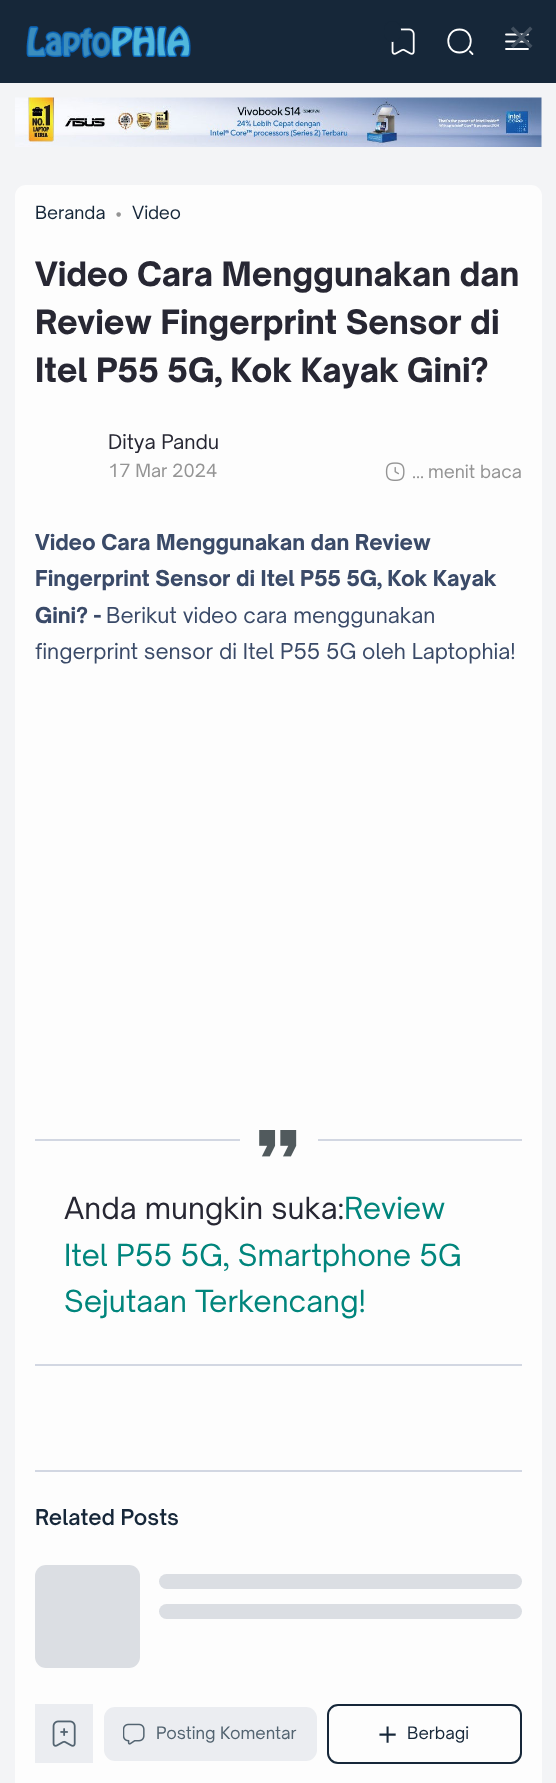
<svg xmlns="http://www.w3.org/2000/svg" width="556" height="1783" viewBox="0 0 556 1783">
  <rect width="100%" height="100%" fill="#f3f4f6"/>
  <path d="M0 0h556v83H0z" fill="#162739"/>
  <image x="26" y="25" width="165" height="33" href="img/1.png"/>
  <image x="391" y="28" width="24" height="27" href="img/2.png"/>
  <rect x="384" y="21" width="17" height="21" rx="8.5" fill="#162739"/>
  <path d="M459.5 52.5C474.5 52.5 474.5 29.5 459.5 29.5C444.5 29.5 444.5 52.5 459.5 52.5ZM472.5 54L470 51.5" fill="none" stroke="#fff" stroke-width="1.8" stroke-linecap="round" stroke-linejoin="round"/>
  <path d="M506 49H528M506 41.5H528M506 34.5H528" fill="none" stroke="#fff" stroke-width="1.8" stroke-linecap="round" stroke-linejoin="round"/>
  <image x="15" y="97" width="527" height="50" href="img/3.png"/>
  <rect x="15" y="185" width="527" height="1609" rx="11" fill="#fdfdfd"/>
  <image x="385" y="462" width="20" height="19" href="img/4.png"/>
  <path d="M35 1139h487v2H35z" fill="#d2d7e2"/>
  <path d="M35 1364h487v2H35z" fill="#d2d7e2"/>
  <path d="M240 1139h78v2H240z" fill="#fdfdfd"/>
  <image x="259" y="1130" width="38" height="27" href="img/5.png"/>
  <path d="M35 1470h487v2H35z" fill="#d2d7e2"/>
  <rect x="35" y="1565" width="105" height="103" rx="11" fill="#dbdee3"/>
  <rect x="159" y="1574" width="363" height="15" rx="7.5" fill="#dbdee3"/>
  <rect x="159" y="1604" width="363" height="15" rx="7.5" fill="#dbdee3"/>
  <path d="M35 1704h58v59H35z" fill="#ebedf1"/>
  <image x="52" y="1720" width="24" height="27" href="img/6.png"/>
  <rect x="104" y="1707" width="213" height="54" rx="11" fill="#ebedf1"/>
  <image x="123" y="1723" width="22" height="22" href="img/7.png"/>
  <rect x="328" y="1705" width="193" height="58" rx="10" fill="none" stroke="#162739" stroke-width="2"/>
  <text x="506" y="54" font-family="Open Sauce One" font-size="49" fill="#42505f">×</text>
  <text x="35" y="219" font-family="Open Sauce One" font-size="17.5" fill="#162739">Beranda</text>
  <text x="115" y="219" font-family="Open Sauce One" font-size="17.5" fill="#949494">•</text>
  <text x="132" y="219" font-family="Open Sauce One" font-size="17.5" fill="#162739">Video</text>
  <g font-family="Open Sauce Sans" font-size="32.2" font-weight="800" fill="#272733">
    <text x="35" y="286">Video Cara Menggunakan dan</text>
    <text x="35" y="334">Review Fingerprint Sensor di</text>
    <text x="35" y="382">Itel P55 5G, Kok Kayak Gini?</text>
  </g>
  <text x="108" y="449" font-family="Open Sauce One" font-size="19.5" fill="#272733">Ditya Pandu</text>
  <g font-family="Open Sauce One" font-size="17.5" fill="#949494">
    <text x="108" y="477">17 Mar 2024</text>
    <text x="412" y="478">...</text>
    <text x="428" y="478">menit baca</text>
  </g>
  <g font-family="Open Sauce Sans" font-size="20.9" font-weight="800" fill="#3a4a68">
    <text x="35" y="550">Video Cara Menggunakan dan Review</text>
    <text x="35" y="586">Fingerprint Sensor di Itel P55 5G, Kok Kayak</text>
    <text x="35" y="623">Gini? -</text>
  </g>
  <g font-family="Open Sauce One" font-size="20.9" fill="#3a4a68">
    <text x="106" y="623">Berikut video cara menggunakan</text>
    <text x="35" y="659">fingerprint sensor di Itel P55 5G oleh Laptophia!</text>
  </g>
  <text x="64" y="1219" font-family="Open Sauce One" font-size="29.25" fill="#272733">Anda mungkin suka:</text>
  <g font-family="Open Sauce One" font-size="29.25" fill="#00857c">
    <text x="344" y="1219">Review</text>
    <text x="64" y="1266">Itel P55 5G, Smartphone 5G</text>
    <text x="64" y="1312">Sejutaan Terkencang!</text>
  </g>
  <text x="35" y="1525" font-family="Open Sauce One" font-size="20.9" font-weight="600" fill="#162739">Related Posts</text>
  <text x="156" y="1739" font-family="Open Sauce One" font-size="16.5" fill="#536471">Posting Komentar</text>
  <text x="374" y="1735" transform="rotate(45 374 1735)" font-family="Open Sauce One" font-size="29.25" fill="#162739">×</text>
  <text x="407" y="1739" font-family="Open Sauce One" font-size="16.5" fill="#162739">Berbagi</text>
</svg>
